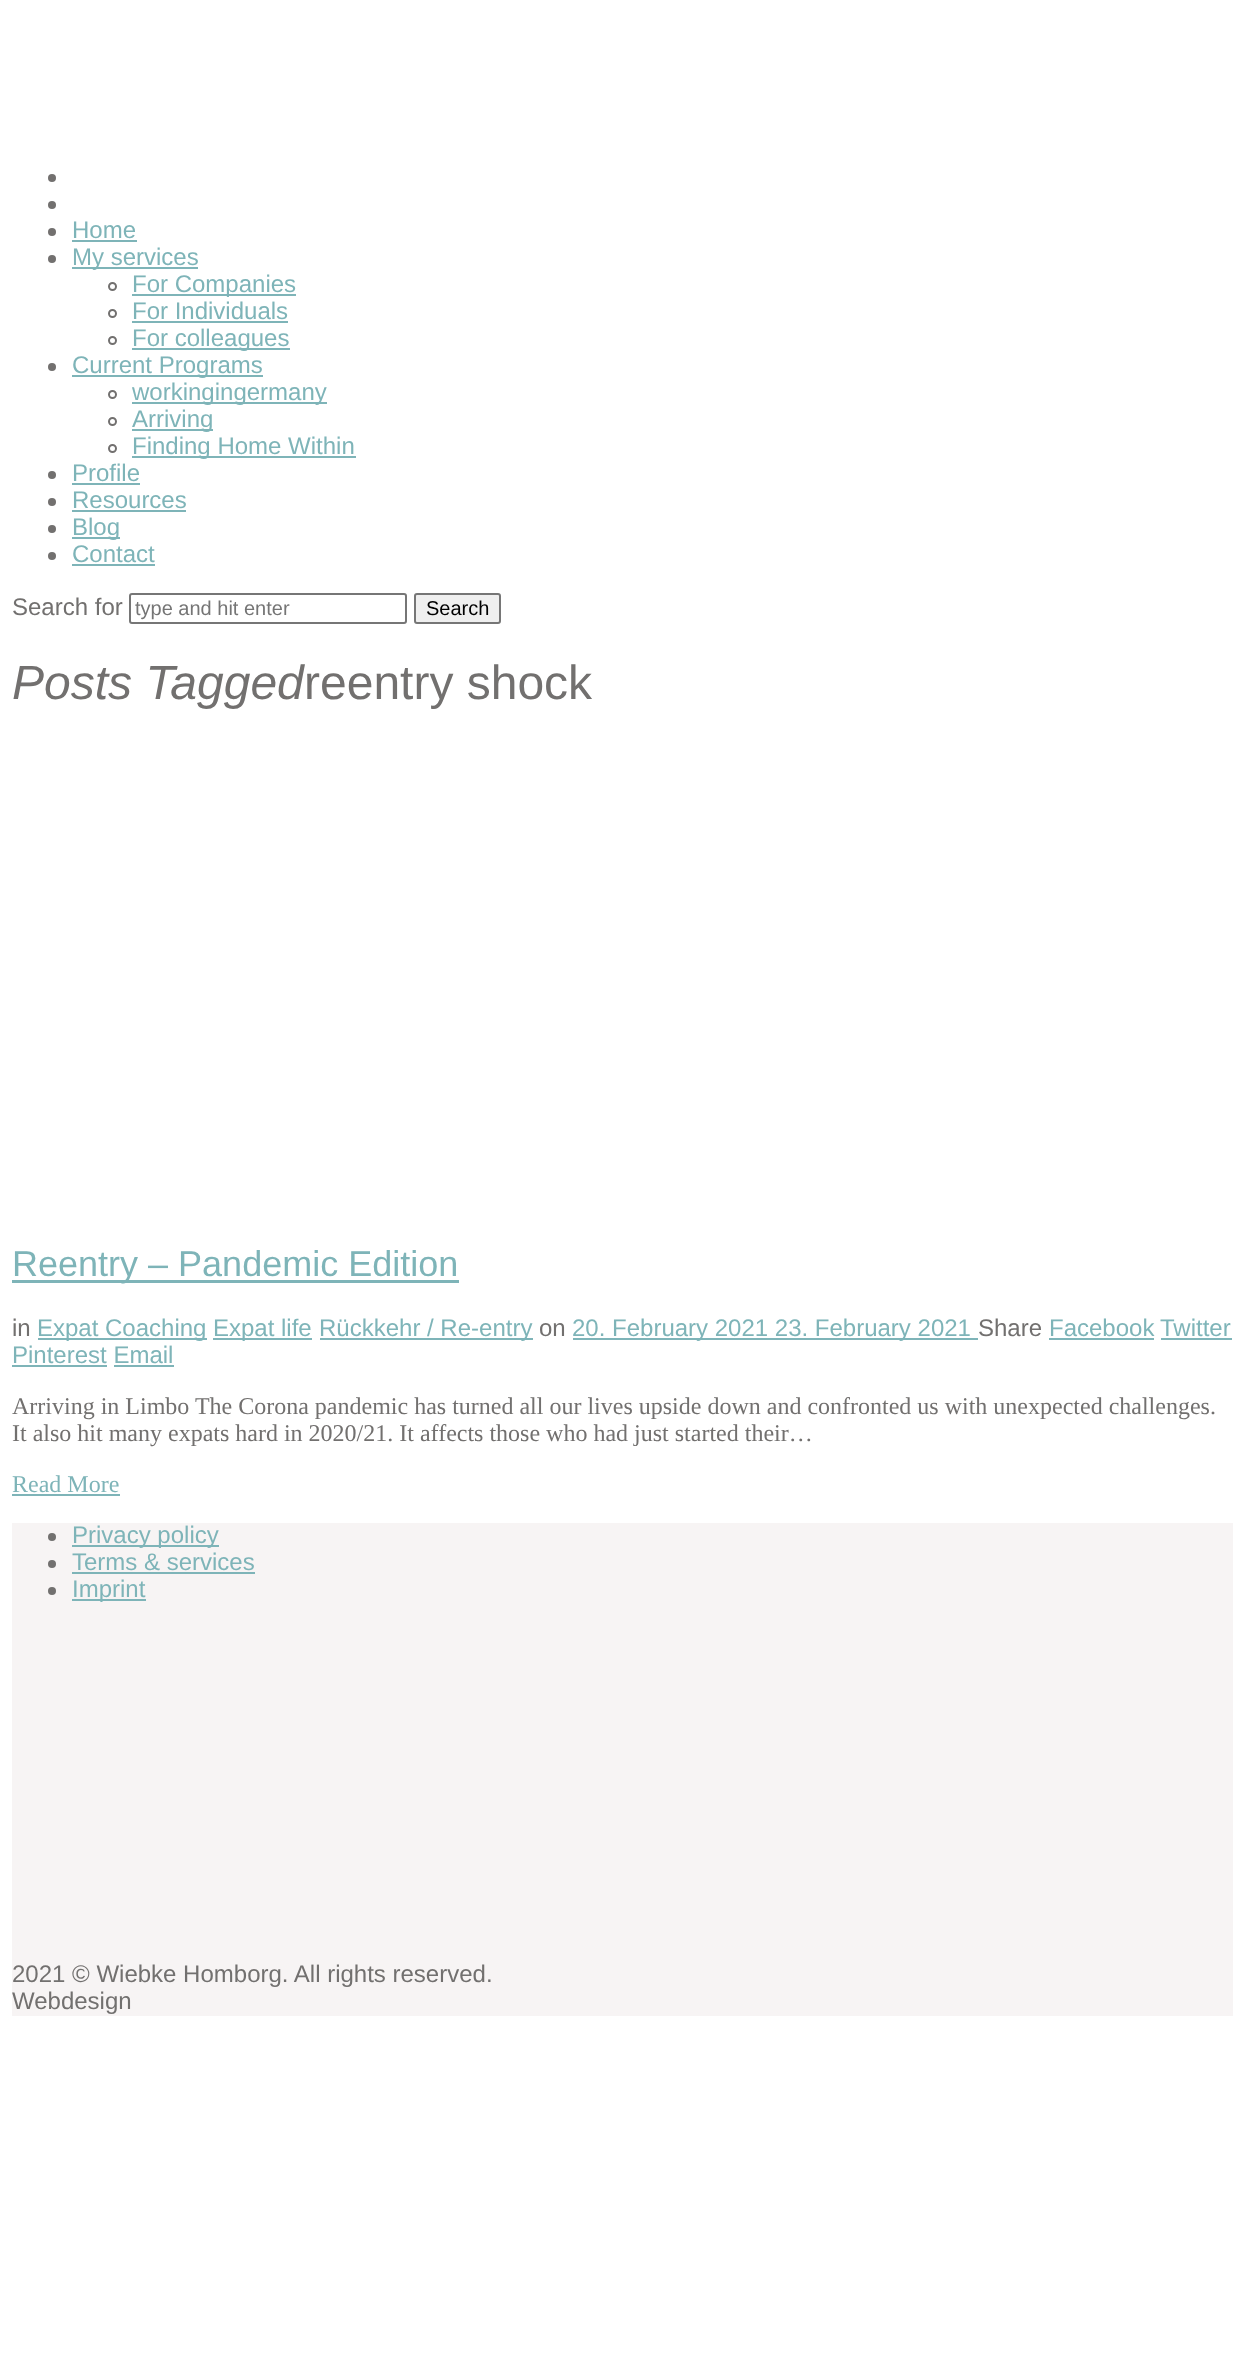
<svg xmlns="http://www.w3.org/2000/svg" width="1245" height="2354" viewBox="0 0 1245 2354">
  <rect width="100%" height="100%" fill="#fff"/>
  <circle cx="52" cy="178" r="4" fill="#72706f"/>
  <circle cx="52" cy="205" r="4" fill="#72706f"/>
  <circle cx="52" cy="232" r="4" fill="#72706f"/>
  <path d="M72 240h65v2H72z" fill="#7eb4b8"/>
  <circle cx="52" cy="259" r="4" fill="#72706f"/>
  <path d="M72 267h126v2H72z" fill="#7eb4b8"/>
  <circle cx="112.5" cy="286.5" r="3.5" fill="none" stroke="#72706f" stroke-width="2"/>
  <path d="M132 294h164v2H132z" fill="#7eb4b8"/>
  <circle cx="112.5" cy="313.5" r="3.5" fill="none" stroke="#72706f" stroke-width="2"/>
  <path d="M132 321h156v2H132z" fill="#7eb4b8"/>
  <circle cx="112.5" cy="340.5" r="3.5" fill="none" stroke="#72706f" stroke-width="2"/>
  <path d="M132 348h158v2H132z" fill="#7eb4b8"/>
  <circle cx="52" cy="367" r="4" fill="#72706f"/>
  <path d="M72 375h191v2H72z" fill="#7eb4b8"/>
  <circle cx="112.5" cy="394.5" r="3.5" fill="none" stroke="#72706f" stroke-width="2"/>
  <path d="M132 402h195v2H132z" fill="#7eb4b8"/>
  <circle cx="112.5" cy="421.5" r="3.5" fill="none" stroke="#72706f" stroke-width="2"/>
  <path d="M132 429h81v2H132z" fill="#7eb4b8"/>
  <circle cx="112.5" cy="448.5" r="3.5" fill="none" stroke="#72706f" stroke-width="2"/>
  <path d="M132 456h224v2H132z" fill="#7eb4b8"/>
  <circle cx="52" cy="475" r="4" fill="#72706f"/>
  <path d="M72 483h68v2H72z" fill="#7eb4b8"/>
  <circle cx="52" cy="502" r="4" fill="#72706f"/>
  <path d="M72 510h114v2H72z" fill="#7eb4b8"/>
  <circle cx="52" cy="529" r="4" fill="#72706f"/>
  <path d="M72 537h48v2H72z" fill="#7eb4b8"/>
  <circle cx="52" cy="556" r="4" fill="#72706f"/>
  <path d="M72 564h83v2H72z" fill="#7eb4b8"/>
  <rect x="130" y="594" width="276" height="29" rx="2" fill="none" stroke="#767676" stroke-width="2"/>
  <rect x="415" y="594" width="85" height="29" rx="2" fill="#efefef" stroke="#767676" stroke-width="2"/>
  <path d="M12 1280h447v3H12z" fill="#7eb4b8"/>
  <path d="M38 1338h169v2H38z" fill="#7eb4b8"/>
  <path d="M213 1338h99v2H213z" fill="#7eb4b8"/>
  <path d="M320 1338h213v2H320z" fill="#7eb4b8"/>
  <path d="M573 1338h405v2H573z" fill="#7eb4b8"/>
  <path d="M1049 1338h105v2H1049z" fill="#7eb4b8"/>
  <path d="M1161 1338h71v2H1161z" fill="#7eb4b8"/>
  <path d="M12 1365h95v2H12z" fill="#7eb4b8"/>
  <path d="M114 1365h60v2H114z" fill="#7eb4b8"/>
  <path d="M12 1494h108v2H12z" fill="#7eb4b8"/>
  <path d="M12 1523h1221v493H12z" fill="#f7f4f4"/>
  <circle cx="52" cy="1537" r="4" fill="#72706f"/>
  <path d="M72 1545h147v2H72z" fill="#7eb4b8"/>
  <circle cx="52" cy="1564" r="4" fill="#72706f"/>
  <path d="M72 1572h183v2H72z" fill="#7eb4b8"/>
  <circle cx="52" cy="1591" r="4" fill="#72706f"/>
  <path d="M72 1599h74v2H72z" fill="#7eb4b8"/>
  <g font-family="Liberation Sans" font-size="24" fill="#7eb4b8">
    <text x="72" y="238">Home</text>
    <text x="72" y="265">My services</text>
    <text x="132" y="292">For Companies</text>
    <text x="132" y="319">For Individuals</text>
    <text x="132" y="346">For colleagues</text>
    <text x="72" y="373">Current Programs</text>
    <text x="132" y="400">workingingermany</text>
    <text x="132" y="427">Arriving</text>
    <text x="132" y="454">Finding Home Within</text>
    <text x="72" y="481">Profile</text>
    <text x="72" y="508">Resources</text>
    <text x="72" y="535">Blog</text>
    <text x="72" y="562">Contact</text>
  </g>
  <text x="12" y="615" font-family="Liberation Sans" font-size="24" fill="#72706f">Search for</text>
  <text x="135" y="615" font-family="Liberation Sans" font-size="20" fill="#757575">type and hit enter</text>
  <text x="426" y="615" font-family="Liberation Sans" font-size="20" fill="#000">Search</text>
  <text x="12" y="699" font-family="Liberation Sans" font-size="48" font-style="italic" fill="#72706f">Posts Tagged</text>
  <text x="304" y="699" font-family="Liberation Sans" font-size="48" fill="#72706f">reentry shock</text>
  <text x="12" y="1276" font-family="Liberation Sans" font-size="36" fill="#7eb4b8">Reentry – Pandemic Edition</text>
  <text x="12" y="1336" font-family="Liberation Sans" font-size="24" fill="#72706f">in</text>
  <g font-family="Liberation Sans" font-size="24" fill="#7eb4b8">
    <text x="37" y="1336">Expat Coaching</text>
    <text x="213" y="1336">Expat life</text>
    <text x="319" y="1336">Rückkehr / Re-entry</text>
  </g>
  <text x="539" y="1336" font-family="Liberation Sans" font-size="24" fill="#72706f">on</text>
  <text x="572" y="1336" font-family="Liberation Sans" font-size="24" fill="#7eb4b8">20. February 2021 23. February 2021</text>
  <text x="978" y="1336" font-family="Liberation Sans" font-size="24" fill="#72706f">Share</text>
  <g font-family="Liberation Sans" font-size="24" fill="#7eb4b8">
    <text x="1049" y="1336">Facebook</text>
    <text x="1160" y="1336">Twitter</text>
    <text x="12" y="1363">Pinterest Email</text>
  </g>
  <g font-family="Liberation Serif" font-size="24" fill="#72706f">
    <text x="12" y="1414">Arriving in Limbo The Corona pandemic has turned all our lives upside down and confronted us with unexpected challenges.</text>
    <text x="12" y="1441">It also hit many expats hard in 2020/21. It affects those who had just started their…</text>
  </g>
  <text x="12" y="1492" font-family="Liberation Serif" font-size="24" fill="#7eb4b8">Read More</text>
  <g font-family="Liberation Sans" font-size="24" fill="#7eb4b8">
    <text x="72" y="1543">Privacy policy</text>
    <text x="72" y="1570">Terms &amp; services</text>
    <text x="72" y="1597">Imprint</text>
  </g>
  <g font-family="Liberation Sans" font-size="24" fill="#72706f">
    <text x="12" y="1982">2021 © Wiebke Homborg. All rights reserved.</text>
    <text x="12" y="2009">Webdesign</text>
  </g>
</svg>
